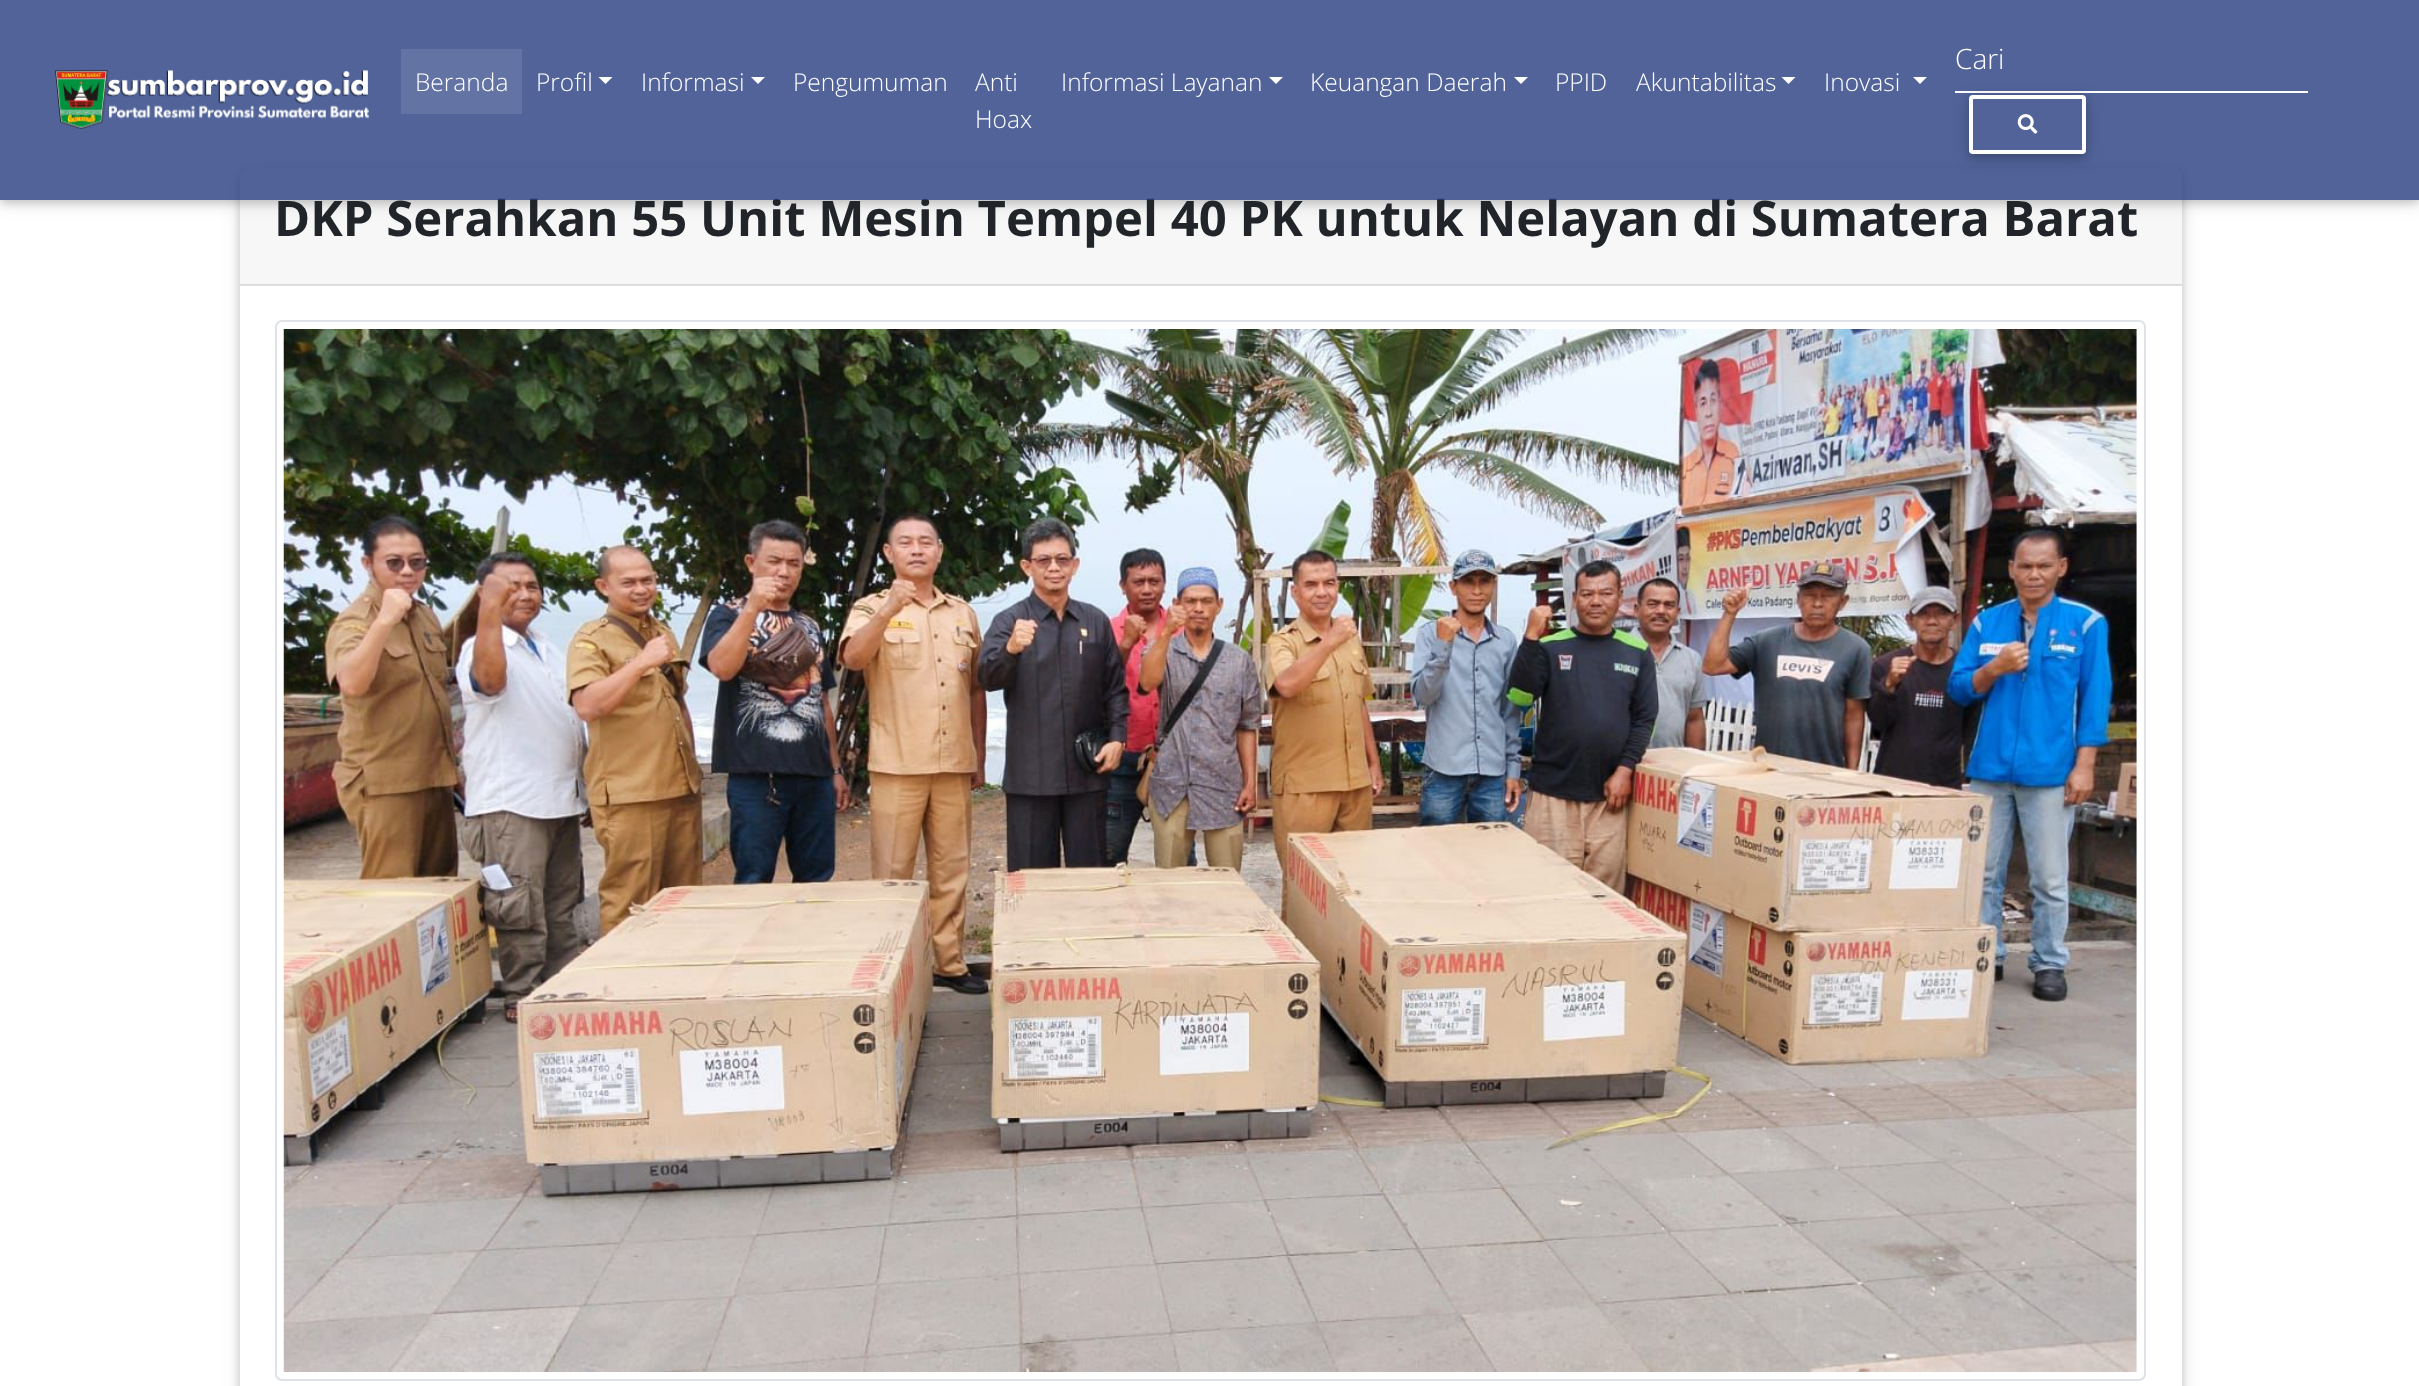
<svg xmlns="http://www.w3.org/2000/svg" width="2419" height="1386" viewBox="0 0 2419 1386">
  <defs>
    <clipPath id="clip1"><path d="M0 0H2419V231H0ZM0 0H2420V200H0Z" clip-rule="evenodd"/></clipPath>
    <clipPath id="clip2"><path d="M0 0H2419V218H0ZM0 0H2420V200H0Z" clip-rule="evenodd"/></clipPath>
    <clipPath id="clip3"><path d="M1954 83H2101V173H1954ZM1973 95H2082C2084 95 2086 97 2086 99V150C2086 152 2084 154 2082 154H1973C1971 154 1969 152 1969 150V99C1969 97 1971 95 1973 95Z" clip-rule="evenodd"/></clipPath>
    <clipPath id="clip4"><path d="M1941 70H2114V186H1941ZM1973 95H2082C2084 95 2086 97 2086 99V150C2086 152 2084 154 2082 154H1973C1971 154 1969 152 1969 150V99C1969 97 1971 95 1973 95Z" clip-rule="evenodd"/></clipPath>
  </defs>
  <rect width="100%" height="100%" fill="#fff"/>
  <rect x="240" y="172" width="1942" height="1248" rx="7" fill="#0000001f" filter="blur(9px)"/>
  <rect x="240" y="172" width="1942" height="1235" rx="7" fill="#00000029" filter="blur(4.5px)"/>
  <rect x="240" y="168" width="1942" height="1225" rx="7" fill="#fff"/>
  <path d="M240 168h1942v117H240z" fill="#00000008"/>
  <g clip-path="url(#clip1)">
    <path d="M0 4h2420v199H0z" fill="#0000001f" filter="blur(9px)"/>
  </g>
  <g clip-path="url(#clip2)">
    <path d="M0 4h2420v199H0z" fill="#00000029" filter="blur(4.5px)"/>
  </g>
  <path d="M240 284h1942v2H240z" fill="#0000001f"/>
  <rect x="276" y="321" width="1869" height="1059" rx="6" fill="none" stroke="#dee2e6" stroke-width="2"/>
  <image x="283" y="329" width="1854" height="1043" href="img/3.png"/>
  <text x="274" y="236" font-family="Open Sans" font-size="49" font-weight="bold" fill="#212529">DKP Serahkan 55 Unit Mesin Tempel 40 PK untuk Nelayan di Sumatera Barat</text>
  <path d="M0 0h2419v200H0z" fill="#253c80cc"/>
  <path d="M1955 91h353v2H1955z" fill="#fff"/>
  <g clip-path="url(#clip3)">
    <rect x="1969" y="98" width="117" height="60" rx="4" fill="#00000029" filter="blur(4.5px)"/>
  </g>
  <g clip-path="url(#clip4)">
    <rect x="1969" y="98" width="117" height="60" rx="4" fill="#0000001f" filter="blur(9px)"/>
  </g>
  <rect x="1971" y="97" width="113" height="55" rx="2" fill="none" stroke="#fff" stroke-width="4"/>
  <image x="2017" y="114" width="21" height="20" href="img/2.png"/>
  <text x="1955" y="69" font-family="Open Sans" font-size="28" font-weight="300" fill="#fff">Cari</text>
  <path d="M1913 77H1927L1920 84Z" fill="#fff"/>
  <text x="1824" y="91" font-family="Open Sans" font-size="24.5" font-weight="300" fill="#fff">Inovasi</text>
  <path d="M1781.5 77H1795.5L1788.5 84Z" fill="#fff"/>
  <g font-family="Open Sans" font-size="24.5" font-weight="300" fill="#fff">
    <text x="1636" y="91">Akuntabilitas</text>
    <text x="1555" y="91">PPID</text>
  </g>
  <path d="M1514 77H1528L1521 84Z" fill="#fff"/>
  <text x="1310" y="91" font-family="Open Sans" font-size="24.5" font-weight="300" fill="#fff">Keuangan Daerah</text>
  <path d="M1269 77H1283L1276 84Z" fill="#fff"/>
  <g font-family="Open Sans" font-size="24.5" font-weight="300" fill="#fff">
    <text x="1061" y="91">Informasi Layanan</text>
    <text x="975" y="128">Hoax</text>
    <text x="975" y="91">Anti</text>
    <text x="793" y="91">Pengumuman</text>
  </g>
  <path d="M751 77H765L758 84Z" fill="#fff"/>
  <text x="641" y="91" font-family="Open Sans" font-size="24.5" font-weight="300" fill="#fff">Informasi</text>
  <path d="M598.5 77H612.5L605.5 84Z" fill="#fff"/>
  <text x="536" y="91" font-family="Open Sans" font-size="24.5" font-weight="300" fill="#fff">Profil</text>
  <path d="M401 49h121v65H401z" fill="#6273a4"/>
  <text x="415" y="91" font-family="Open Sans" font-size="24.5" font-weight="300" fill="#fff">Beranda</text>
  <image x="55" y="70" width="314" height="60" href="img/1.png"/>
</svg>
